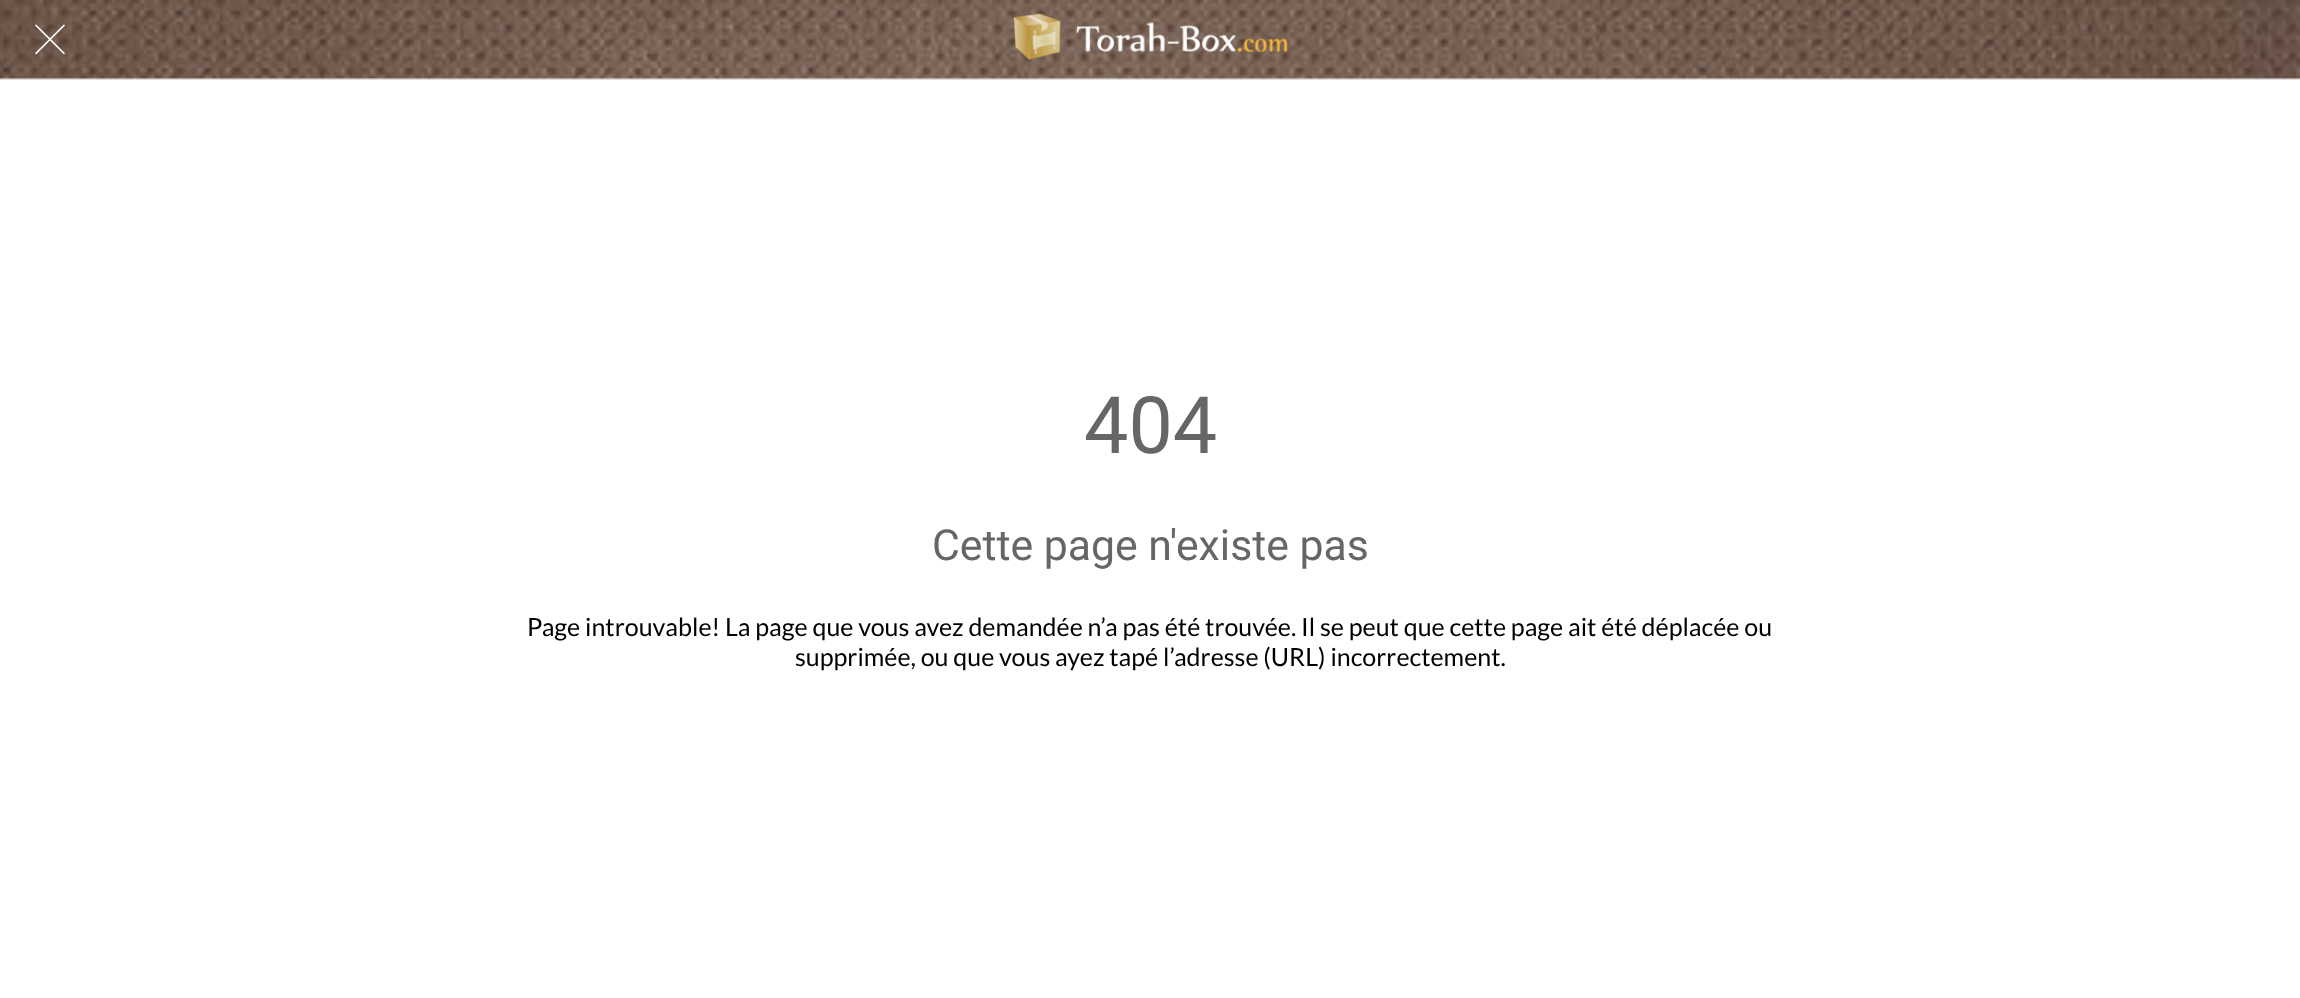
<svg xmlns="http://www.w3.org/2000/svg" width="2300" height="998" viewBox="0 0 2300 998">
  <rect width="100%" height="100%" fill="#fff"/>
  <path d="M0 79h2300v1H0z" fill="#ddd"/>
  <image x="0" y="0" width="2300" height="79" href="img/1.png"/>
  <image x="35" y="24" width="30" height="31" href="img/2.png"/>
  <image x="1013" y="13" width="275" height="47" href="img/3.png"/>
  <text x="1084" y="453" font-family="Roboto" font-size="79" fill="#666">404</text>
  <text x="932" y="560" font-family="Roboto" font-size="42.75" fill="#666">Cette page n'existe pas</text>
  <g font-family="Lato" font-size="25" fill="#000">
    <text x="527" y="636">Page introuvable! La page que vous avez demandée n’a pas été trouvée. Il se peut que cette page ait été déplacée ou</text>
    <text x="795" y="666">supprimée, ou que vous ayez tapé l’adresse (URL) incorrectement.</text>
  </g>
</svg>
